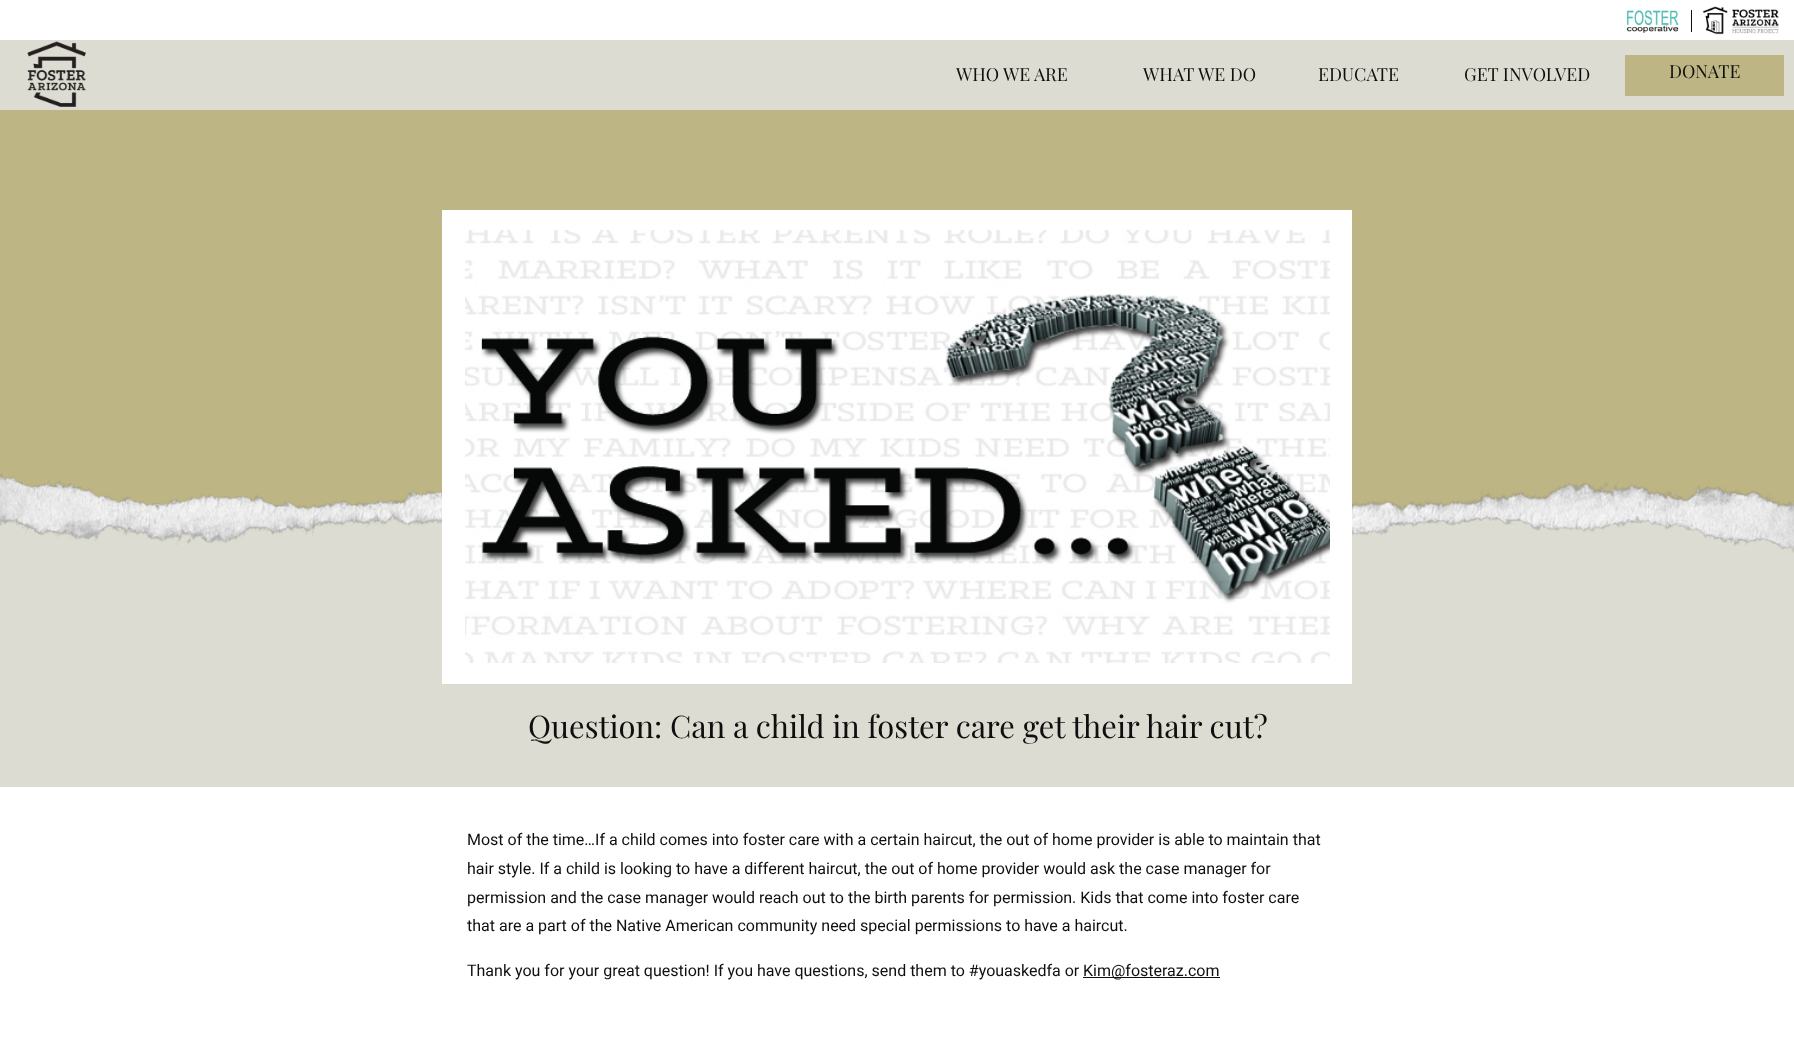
<svg xmlns="http://www.w3.org/2000/svg" width="1794" height="1040" viewBox="0 0 1794 1040">
  <rect width="100%" height="100%" fill="#fff"/>
  <image x="1626" y="10" width="53" height="23" href="img/1.png"/>
  <path d="M1691 10h1v22H1691z" fill="#0f0f0f"/>
  <image x="1703" y="6" width="76" height="29" href="img/2.png"/>
  <path d="M0 40h1794v70H0z" fill="#dddcd2"/>
  <image x="27" y="41" width="59" height="66" href="img/3.png"/>
  <path d="M1625 55h159v41H1625z" fill="#bdb583"/>
  <path d="M0 110h1794v400H0z" fill="#bdb583"/>
  <path d="M0 510h1794v277H0z" fill="#dddcd2"/>
  <path d="M442 210h910v474H442z" fill="#fff"/>
  <image x="0" y="473" width="442" height="72" href="img/4.png"/>
  <image x="465" y="230" width="865" height="433" href="img/5.png"/>
  <image x="1352" y="481" width="442" height="72" href="img/6.png"/>
  <path d="M1083 977h137v1H1083z" fill="#0f0f0f"/>
  <g font-family="Playfair Display" font-size="18" fill="#0f0f0f">
    <text x="956" y="81">WHO WE ARE</text>
    <text x="1143" y="81">WHAT WE DO</text>
    <text x="1318" y="81">EDUCATE</text>
    <text x="1464" y="81">GET INVOLVED</text>
    <text x="1669" y="78">DONATE</text>
  </g>
  <text x="528" y="738" font-family="Playfair Display" font-size="31" fill="#0f0f0f">Question: Can a child in foster care get their hair cut?</text>
  <g font-family="Roboto" font-size="16" fill="#0f0f0f">
    <text x="467" y="845">Most of the time…If a child comes into foster care with a certain haircut, the out of home provider is able to maintain that</text>
    <text x="467" y="874">hair style. If a child is looking to have a different haircut, the out of home provider would ask the case manager for</text>
    <text x="467" y="903">permission and the case manager would reach out to the birth parents for permission. Kids that come into foster care</text>
    <text x="467" y="931">that are a part of the Native American community need special permissions to have a haircut.</text>
    <text x="467" y="976">Thank you for your great question! If you have questions, send them to #youaskedfa or</text>
    <text x="1083" y="976">Kim@fosteraz.com</text>
  </g>
</svg>
